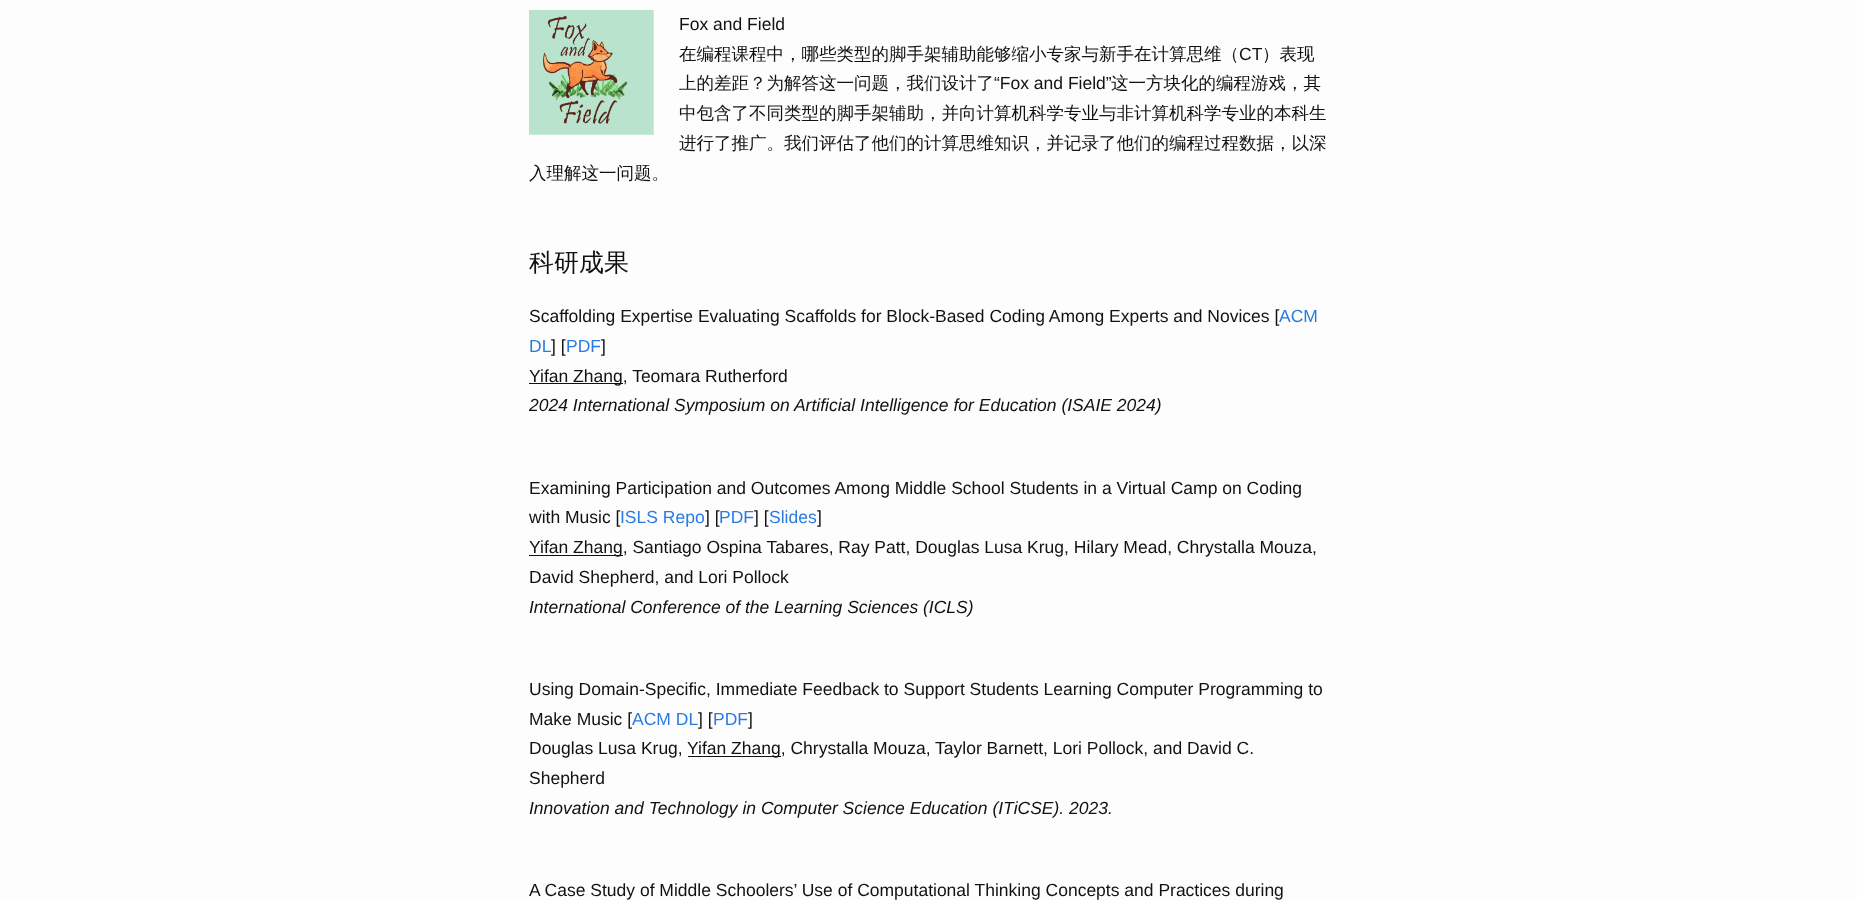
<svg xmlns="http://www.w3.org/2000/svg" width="1857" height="900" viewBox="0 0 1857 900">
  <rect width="100%" height="100%" fill="#fdfdfd"/>
  <image x="529" y="10" width="125" height="125" href="img/1.png"/>
  <path d="M529 383h94v1H529z" fill="#111"/>
  <path d="M529 555h94v1H529z" fill="#111"/>
  <path d="M688 756h93v1H688z" fill="#111"/>
  <text x="679" y="30" font-family="Liberation Sans" font-size="17.5" fill="#111">Fox and Field</text>
  <text x="679" y="60" font-family="WenQuanYi Zen Hei" font-size="17.5" font-weight="500" fill="#111">在编程课程中，哪些类型的脚手架辅助能够缩小专家与新手在计算思维（</text>
  <text x="1239" y="60" font-family="Liberation Sans" font-size="17.5" fill="#111">CT</text>
  <g font-family="WenQuanYi Zen Hei" font-size="17.5" font-weight="500" fill="#111">
    <text x="1262" y="60">）表现</text>
    <text x="679" y="89">上的差距？为解答这一问题，我们设计了</text>
  </g>
  <text x="994" y="89" font-family="Liberation Sans" font-size="17.5" fill="#111">“Fox and Field”</text>
  <g font-family="WenQuanYi Zen Hei" font-size="17.5" font-weight="500" fill="#111">
    <text x="1111" y="89">这一方块化的编程游戏，其</text>
    <text x="679" y="119">中包含了不同类型的脚手架辅助，并向计算机科学专业与非计算机科学专业的本科生</text>
    <text x="679" y="149">进行了推广。我们评估了他们的计算思维知识，并记录了他们的编程过程数据，以深</text>
    <text x="529" y="179">入理解这一问题。</text>
  </g>
  <text x="529" y="271" font-family="WenQuanYi Zen Hei" font-size="25" font-weight="500" fill="#111">科研成果</text>
  <text x="529" y="322" font-family="Liberation Sans" font-size="17.5" fill="#111">Scaffolding Expertise Evaluating Scaffolds for Block-Based Coding Among Experts and Novices [</text>
  <g font-family="Liberation Sans" font-size="17.5" fill="#2a7ae2">
    <text x="1279" y="322">ACM</text>
    <text x="529" y="352">DL</text>
  </g>
  <text x="551" y="352" font-family="Liberation Sans" font-size="17.5" fill="#111">] [</text>
  <text x="566" y="352" font-family="Liberation Sans" font-size="17.5" fill="#2a7ae2">PDF</text>
  <g font-family="Liberation Sans" font-size="17.5" fill="#111">
    <text x="601" y="352">]</text>
    <text x="529" y="382">Yifan Zhang, Teomara Rutherford</text>
  </g>
  <text x="529" y="411" font-family="Liberation Sans" font-size="17.5" font-style="italic" fill="#111">2024 International Symposium on Artificial Intelligence for Education (ISAIE 2024)</text>
  <g font-family="Liberation Sans" font-size="17.5" fill="#111">
    <text x="529" y="494">Examining Participation and Outcomes Among Middle School Students in a Virtual Camp on Coding</text>
    <text x="529" y="523">with Music [</text>
  </g>
  <text x="620" y="523" font-family="Liberation Sans" font-size="17.5" fill="#2a7ae2">ISLS Repo</text>
  <text x="705" y="523" font-family="Liberation Sans" font-size="17.5" fill="#111">] [</text>
  <text x="719" y="523" font-family="Liberation Sans" font-size="17.5" fill="#2a7ae2">PDF</text>
  <text x="754" y="523" font-family="Liberation Sans" font-size="17.5" fill="#111">] [</text>
  <text x="769" y="523" font-family="Liberation Sans" font-size="17.5" fill="#2a7ae2">Slides</text>
  <g font-family="Liberation Sans" font-size="17.5" fill="#111">
    <text x="817" y="523">]</text>
    <text x="529" y="553">Yifan Zhang, Santiago Ospina Tabares, Ray Patt, Douglas Lusa Krug, Hilary Mead, Chrystalla Mouza,</text>
    <text x="529" y="583">David Shepherd, and Lori Pollock</text>
  </g>
  <text x="529" y="613" font-family="Liberation Sans" font-size="17.5" font-style="italic" fill="#111">International Conference of the Learning Sciences (ICLS)</text>
  <g font-family="Liberation Sans" font-size="17.5" fill="#111">
    <text x="529" y="695">Using Domain-Specific, Immediate Feedback to Support Students Learning Computer Programming to</text>
    <text x="529" y="725">Make Music [</text>
  </g>
  <text x="632" y="725" font-family="Liberation Sans" font-size="17.5" fill="#2a7ae2">ACM DL</text>
  <text x="698" y="725" font-family="Liberation Sans" font-size="17.5" fill="#111">] [</text>
  <text x="713" y="725" font-family="Liberation Sans" font-size="17.5" fill="#2a7ae2">PDF</text>
  <g font-family="Liberation Sans" font-size="17.5" fill="#111">
    <text x="748" y="725">]</text>
    <text x="529" y="754">Douglas Lusa Krug,</text>
    <text x="687" y="754">Yifan Zhang, Chrystalla Mouza, Taylor Barnett, Lori Pollock, and David C.</text>
    <text x="529" y="784">Shepherd</text>
  </g>
  <text x="529" y="814" font-family="Liberation Sans" font-size="17.5" font-style="italic" fill="#111">Innovation and Technology in Computer Science Education (ITiCSE). 2023.</text>
  <text x="529" y="896" font-family="Liberation Sans" font-size="17.5" fill="#111">A Case Study of Middle Schoolers’ Use of Computational Thinking Concepts and Practices during</text>
</svg>
